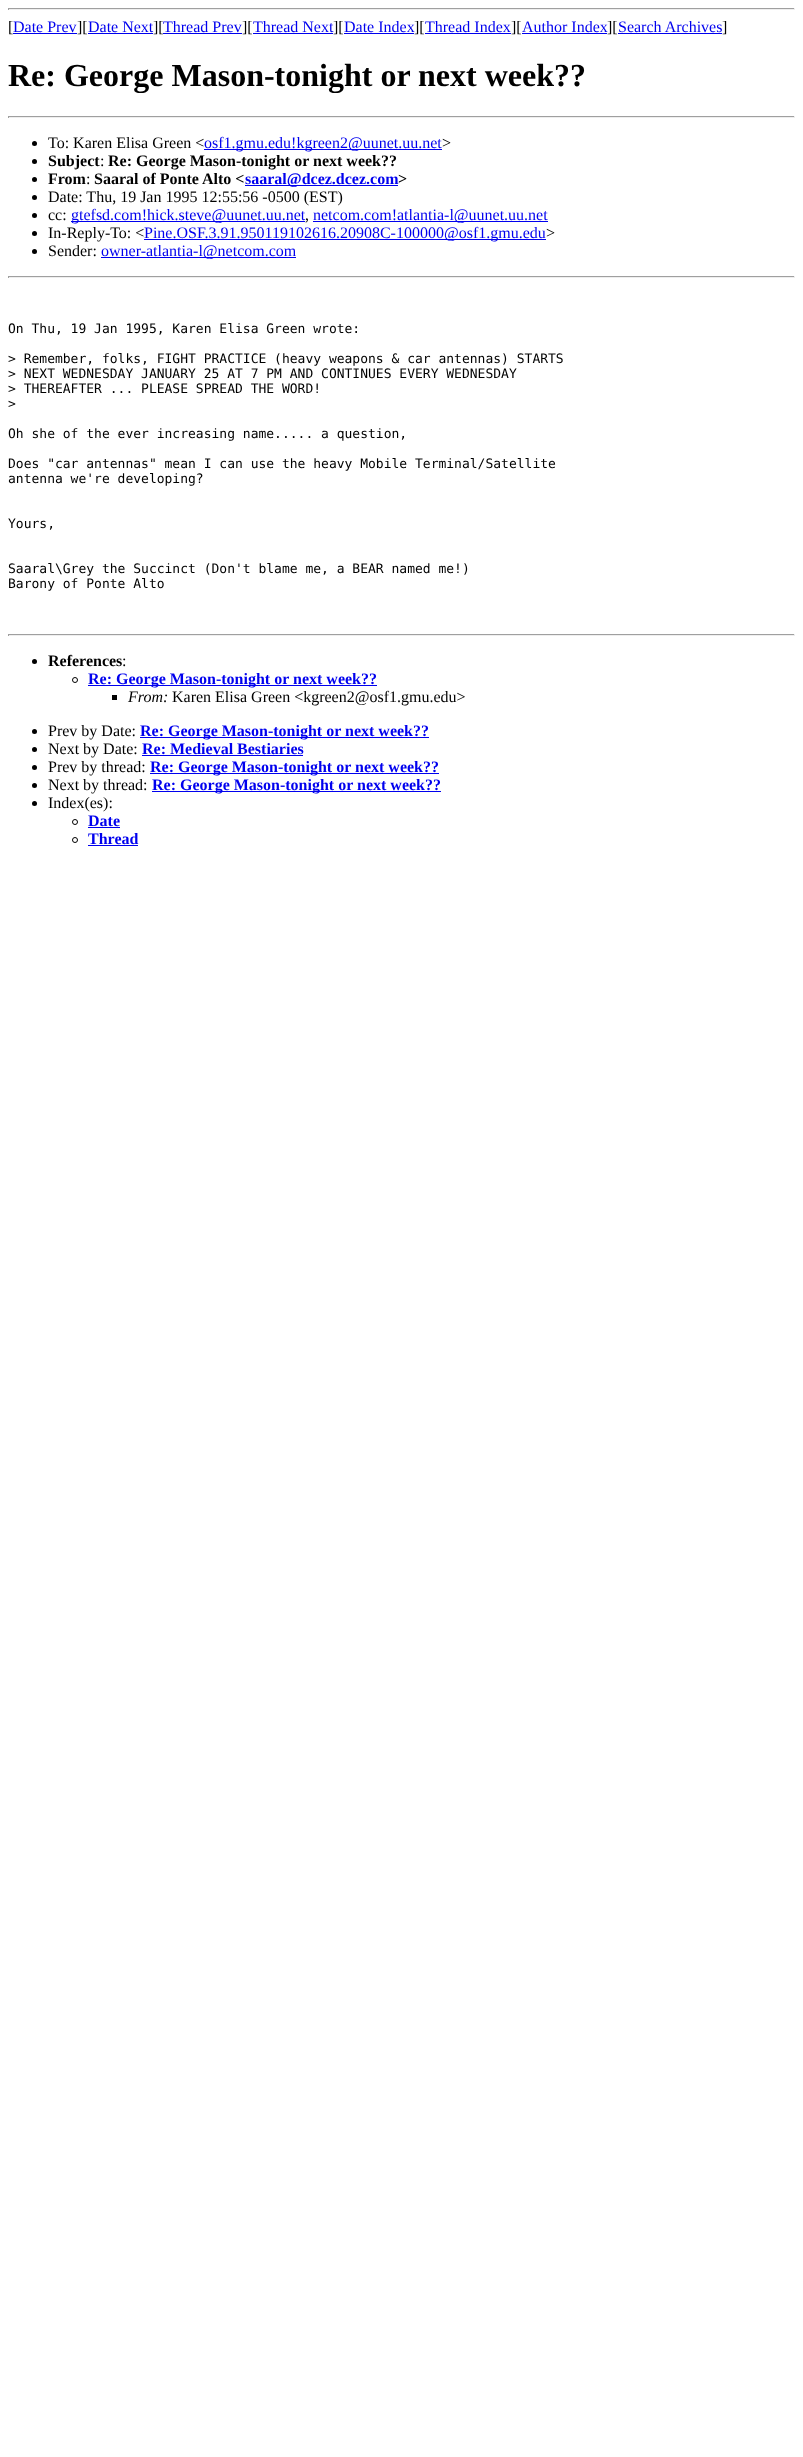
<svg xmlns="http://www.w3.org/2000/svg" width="803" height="2457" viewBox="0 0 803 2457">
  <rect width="100%" height="100%" fill="#fff"/>
  <path d="M8 8h787v1H8z" fill="#9f9f9f"/>
  <path d="M794 8h1v2H794z" fill="#eee"/>
  <path d="M8 9h787v1H8z" fill="#eee"/>
  <path d="M8 8h1v2H8z" fill="#9f9f9f"/>
  <path d="M13 33h64v1H13z" fill="#00e"/>
  <path d="M88 33h65v1H88z" fill="#00e"/>
  <path d="M163 33h79v1H163z" fill="#00e"/>
  <path d="M253 33h80v1H253z" fill="#00e"/>
  <path d="M344 33h70v1H344z" fill="#00e"/>
  <path d="M425 33h86v1H425z" fill="#00e"/>
  <path d="M522 33h85v1H522z" fill="#00e"/>
  <path d="M618 33h104v1H618z" fill="#00e"/>
  <path d="M8 116h787v1H8z" fill="#9f9f9f"/>
  <path d="M794 116h1v2H794z" fill="#eee"/>
  <path d="M8 117h787v1H8z" fill="#eee"/>
  <path d="M8 116h1v2H8z" fill="#9f9f9f"/>
  <circle cx="34.5" cy="143.5" r="2.5" fill="#000"/>
  <path d="M204 149h238v1H204z" fill="#00e"/>
  <circle cx="34.5" cy="161.5" r="2.5" fill="#000"/>
  <circle cx="34.5" cy="179.5" r="2.5" fill="#000"/>
  <path d="M245 185h153v1H245z" fill="#00e"/>
  <circle cx="34.5" cy="197.5" r="2.5" fill="#000"/>
  <circle cx="34.5" cy="215.5" r="2.5" fill="#000"/>
  <path d="M71 221h234v1H71z" fill="#00e"/>
  <path d="M313 221h235v1H313z" fill="#00e"/>
  <circle cx="34.5" cy="233.5" r="2.5" fill="#000"/>
  <path d="M144 239h402v1H144z" fill="#00e"/>
  <circle cx="34.5" cy="251.5" r="2.5" fill="#000"/>
  <path d="M101 257h195v1H101z" fill="#00e"/>
  <path d="M8 276h787v1H8z" fill="#9f9f9f"/>
  <path d="M794 276h1v2H794z" fill="#eee"/>
  <path d="M8 277h787v1H8z" fill="#eee"/>
  <path d="M8 276h1v2H8z" fill="#9f9f9f"/>
  <path d="M8 634h787v1H8z" fill="#9f9f9f"/>
  <path d="M794 634h1v2H794z" fill="#eee"/>
  <path d="M8 635h787v1H8z" fill="#eee"/>
  <path d="M8 634h1v2H8z" fill="#9f9f9f"/>
  <circle cx="34.5" cy="661.5" r="2.5" fill="#000"/>
  <circle cx="75" cy="680" r="2.5" fill="none" stroke="#000"/>
  <path d="M88 685h289v1H88z" fill="#00e"/>
  <path d="M112 695h5v5H112z" fill="#000"/>
  <circle cx="34.5" cy="731.5" r="2.5" fill="#000"/>
  <path d="M140 737h289v1H140z" fill="#00e"/>
  <circle cx="34.5" cy="749.5" r="2.5" fill="#000"/>
  <path d="M142 755h161v1H142z" fill="#00e"/>
  <circle cx="34.5" cy="767.5" r="2.5" fill="#000"/>
  <path d="M150 773h289v1H150z" fill="#00e"/>
  <circle cx="34.5" cy="785.5" r="2.5" fill="#000"/>
  <path d="M152 791h289v1H152z" fill="#00e"/>
  <circle cx="34.5" cy="803.5" r="2.5" fill="#000"/>
  <circle cx="75" cy="822" r="2.5" fill="none" stroke="#000"/>
  <path d="M88 827h32v1H88z" fill="#00e"/>
  <circle cx="75" cy="840" r="2.5" fill="none" stroke="#000"/>
  <path d="M88 845h50v1H88z" fill="#00e"/>
  <text x="8" y="32" font-family="Liberation Serif" font-size="16" fill="#000">[</text>
  <text x="13" y="32" font-family="Liberation Serif" font-size="16" fill="#00e">Date Prev</text>
  <text x="77" y="32" font-family="Liberation Serif" font-size="16" fill="#000">][</text>
  <text x="88" y="32" font-family="Liberation Serif" font-size="16" fill="#00e">Date Next</text>
  <text x="153" y="32" font-family="Liberation Serif" font-size="16" fill="#000">][</text>
  <text x="163" y="32" font-family="Liberation Serif" font-size="16" fill="#00e">Thread Prev</text>
  <text x="242" y="32" font-family="Liberation Serif" font-size="16" fill="#000">][</text>
  <text x="253" y="32" font-family="Liberation Serif" font-size="16" fill="#00e">Thread Next</text>
  <text x="333" y="32" font-family="Liberation Serif" font-size="16" fill="#000">][</text>
  <text x="344" y="32" font-family="Liberation Serif" font-size="16" fill="#00e">Date Index</text>
  <text x="414" y="32" font-family="Liberation Serif" font-size="16" fill="#000">][</text>
  <text x="425" y="32" font-family="Liberation Serif" font-size="16" fill="#00e">Thread Index</text>
  <text x="511" y="32" font-family="Liberation Serif" font-size="16" fill="#000">][</text>
  <text x="522" y="32" font-family="Liberation Serif" font-size="16" fill="#00e">Author Index</text>
  <text x="607" y="32" font-family="Liberation Serif" font-size="16" fill="#000">][</text>
  <text x="618" y="32" font-family="Liberation Serif" font-size="16" fill="#00e">Search Archives</text>
  <text x="722" y="32" font-family="Liberation Serif" font-size="16" fill="#000">]</text>
  <text x="8" y="86" font-family="Liberation Serif" font-size="32" font-weight="bold" fill="#000">Re: George Mason-tonight or next week??</text>
  <text x="48" y="148" font-family="Liberation Serif" font-size="16" fill="#000">To: Karen Elisa Green &lt;</text>
  <text x="204" y="148" font-family="Liberation Serif" font-size="16" fill="#00e">osf1.gmu.edu!kgreen2@uunet.uu.net</text>
  <text x="442" y="148" font-family="Liberation Serif" font-size="16" fill="#000">&gt;</text>
  <text x="48" y="166" font-family="Liberation Serif" font-size="16" font-weight="bold" fill="#000">Subject</text>
  <text x="100" y="166" font-family="Liberation Serif" font-size="16" fill="#000">:</text>
  <g font-family="Liberation Serif" font-size="16" font-weight="bold" fill="#000">
    <text x="108" y="166">Re: George Mason-tonight or next week??</text>
    <text x="48" y="184">From</text>
  </g>
  <text x="86" y="184" font-family="Liberation Serif" font-size="16" fill="#000">:</text>
  <text x="94" y="184" font-family="Liberation Serif" font-size="16" font-weight="bold" fill="#000">Saaral of Ponte Alto &lt;</text>
  <text x="245" y="184" font-family="Liberation Serif" font-size="16" font-weight="bold" fill="#00e">saaral@dcez.dcez.com</text>
  <text x="398" y="184" font-family="Liberation Serif" font-size="16" font-weight="bold" fill="#000">&gt;</text>
  <g font-family="Liberation Serif" font-size="16" fill="#000">
    <text x="48" y="202">Date: Thu, 19 Jan 1995 12:55:56 -0500 (EST)</text>
    <text x="48" y="220">cc:</text>
  </g>
  <g font-family="Liberation Serif" font-size="16" fill="#00e">
    <text x="71" y="220">gtefsd.com!hick.steve@uunet.uu.net</text>
    <text x="313" y="220">netcom.com!atlantia-l@uunet.uu.net</text>
  </g>
  <g font-family="Liberation Serif" font-size="16" fill="#000">
    <text x="305" y="220">,</text>
    <text x="48" y="238">In-Reply-To: &lt;</text>
  </g>
  <text x="144" y="238" font-family="Liberation Serif" font-size="16" fill="#00e">Pine.OSF.3.91.950119102616.20908C-100000@osf1.gmu.edu</text>
  <g font-family="Liberation Serif" font-size="16" fill="#000">
    <text x="546" y="238">&gt;</text>
    <text x="48" y="256">Sender:</text>
  </g>
  <text x="101" y="256" font-family="Liberation Serif" font-size="16" fill="#00e">owner-atlantia-l@netcom.com</text>
  <g font-family="DejaVu Sans Mono" font-size="13" fill="#000">
    <text x="8" y="333">On Thu, 19 Jan 1995, Karen Elisa Green wrote:</text>
    <text x="8" y="363">&gt; Remember, folks, FIGHT PRACTICE (heavy weapons &amp; car antennas) STARTS</text>
    <text x="8" y="378">&gt; NEXT WEDNESDAY JANUARY 25 AT 7 PM AND CONTINUES EVERY WEDNESDAY</text>
    <text x="8" y="393">&gt; THEREAFTER ... PLEASE SPREAD THE WORD!</text>
    <text x="8" y="408">&gt;</text>
    <text x="8" y="438">Oh she of the ever increasing name..... a question,</text>
    <text x="8" y="468">Does "car antennas" mean I can use the heavy Mobile Terminal/Satellite</text>
    <text x="8" y="483">antenna we're developing?</text>
    <text x="8" y="528">Yours,</text>
    <text x="8" y="573">Saaral\Grey the Succinct (Don't blame me, a BEAR named me!)</text>
    <text x="8" y="588">Barony of Ponte Alto</text>
  </g>
  <text x="48" y="666" font-family="Liberation Serif" font-size="16" font-weight="bold" fill="#000">References</text>
  <text x="122" y="666" font-family="Liberation Serif" font-size="16" fill="#000">:</text>
  <text x="88" y="684" font-family="Liberation Serif" font-size="16" font-weight="bold" fill="#00e">Re: George Mason-tonight or next week??</text>
  <text x="128" y="702" font-family="Liberation Serif" font-size="16" font-style="italic" fill="#000">From:</text>
  <g font-family="Liberation Serif" font-size="16" fill="#000">
    <text x="172" y="702">Karen Elisa Green &lt;kgreen2@osf1.gmu.edu&gt;</text>
    <text x="48" y="736">Prev by Date:</text>
  </g>
  <text x="140" y="736" font-family="Liberation Serif" font-size="16" font-weight="bold" fill="#00e">Re: George Mason-tonight or next week??</text>
  <text x="48" y="754" font-family="Liberation Serif" font-size="16" fill="#000">Next by Date:</text>
  <text x="142" y="754" font-family="Liberation Serif" font-size="16" font-weight="bold" fill="#00e">Re: Medieval Bestiaries</text>
  <text x="48" y="772" font-family="Liberation Serif" font-size="16" fill="#000">Prev by thread:</text>
  <text x="150" y="772" font-family="Liberation Serif" font-size="16" font-weight="bold" fill="#00e">Re: George Mason-tonight or next week??</text>
  <text x="48" y="790" font-family="Liberation Serif" font-size="16" fill="#000">Next by thread:</text>
  <text x="152" y="790" font-family="Liberation Serif" font-size="16" font-weight="bold" fill="#00e">Re: George Mason-tonight or next week??</text>
  <text x="48" y="808" font-family="Liberation Serif" font-size="16" fill="#000">Index(es):</text>
  <g font-family="Liberation Serif" font-size="16" font-weight="bold" fill="#00e">
    <text x="88" y="826">Date</text>
    <text x="88" y="844">Thread</text>
  </g>
</svg>
